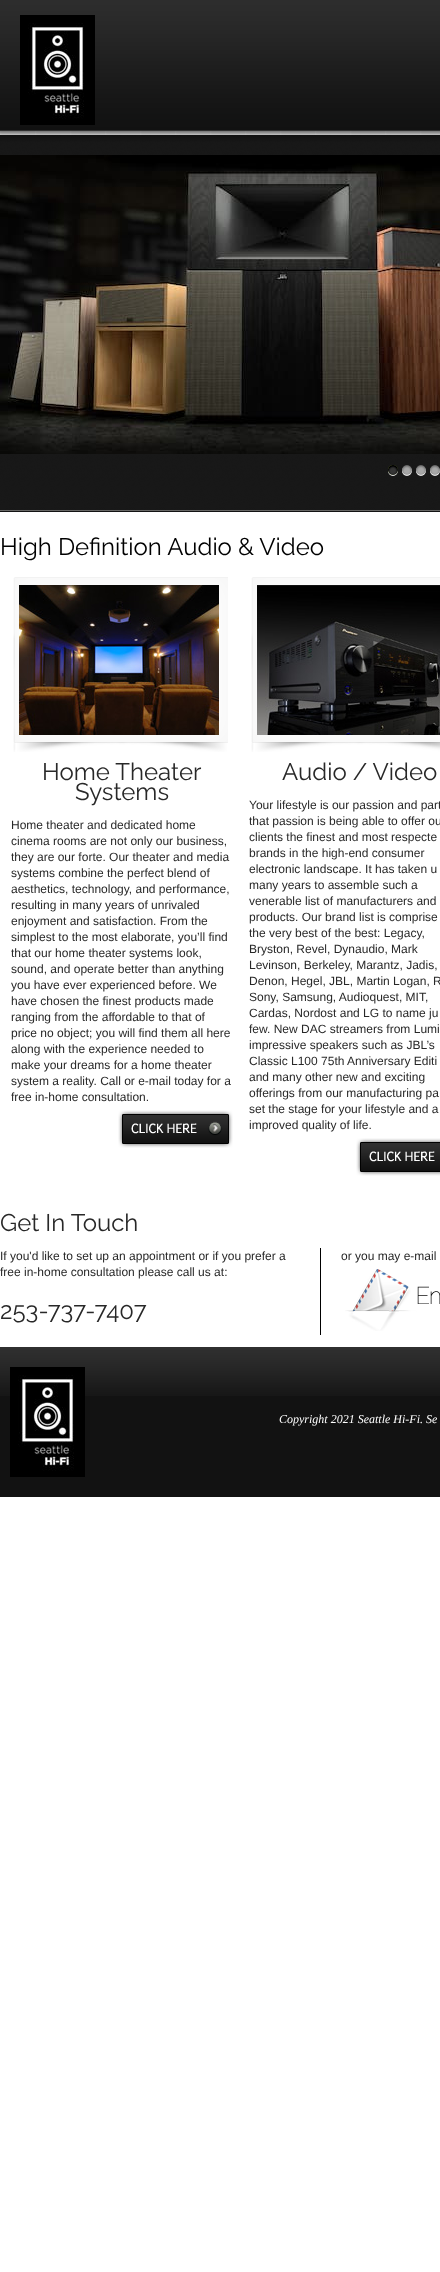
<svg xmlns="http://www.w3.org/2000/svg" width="440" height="2272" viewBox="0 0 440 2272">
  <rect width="100%" height="100%" fill="#fff"/>
  <image x="0" y="0" width="440" height="135" href="img/1.png"/>
  <image x="20" y="15" width="75" height="110" href="img/2.png"/>
  <image x="0" y="135" width="440" height="377" href="img/3.png"/>
  <image x="0" y="155" width="440" height="299" href="img/4.png"/>
  <image x="388" y="465" width="10" height="11" href="img/5.png"/>
  <image x="402" y="465" width="10" height="11" href="img/6.png"/>
  <image x="416" y="465" width="10" height="11" href="img/7.png"/>
  <image x="430" y="465" width="10" height="11" href="img/8.png"/>
  <image x="13" y="577" width="215" height="175" href="img/9.png"/>
  <image x="118" y="1110" width="115" height="38" href="img/10.png"/>
  <image x="251" y="577" width="189" height="175" href="img/11.png"/>
  <image x="356" y="1138" width="84" height="38" href="img/12.png"/>
  <path d="M320 1248h1v87H320z" fill="#000"/>
  <image x="345" y="1269" width="95" height="62" href="img/13.png"/>
  <path d="M0 1396h440v101H0z" fill="#121212"/>
  <image x="0" y="1347" width="440" height="49" href="img/14.png"/>
  <image x="10" y="1367" width="75" height="110" href="img/2.png"/>
  <text x="0" y="555" font-family="Raleway" font-size="24" fill="#000">High Definition Audio &amp; Video</text>
  <g font-family="Raleway" font-size="24" fill="#282828">
    <text x="42" y="780">Home Theater</text>
    <text x="75" y="800">Systems</text>
  </g>
  <g font-family="Liberation Sans" font-size="12" fill="#282828">
    <text x="11" y="829">Home theater and dedicated home</text>
    <text x="11" y="845">cinema rooms are not only our business,</text>
    <text x="11" y="861">they are our forte. Our theater and media</text>
    <text x="11" y="877">systems combine the perfect blend of</text>
    <text x="11" y="893">aesthetics, technology, and performance,</text>
    <text x="11" y="909">resulting in many years of unrivaled</text>
    <text x="11" y="925">enjoyment and satisfaction. From the</text>
    <text x="11" y="941">simplest to the most elaborate, you’ll find</text>
    <text x="11" y="957">that our home theater systems look,</text>
    <text x="11" y="973">sound, and operate better than anything</text>
    <text x="11" y="989">you have ever experienced before. We</text>
    <text x="11" y="1005">have chosen the finest products made</text>
    <text x="11" y="1021">ranging from the affordable to that of</text>
    <text x="11" y="1037">price no object; you will find them all here</text>
    <text x="11" y="1053">along with the experience needed to</text>
    <text x="11" y="1069">make your dreams for a home theater</text>
    <text x="11" y="1085">system a reality. Call or e-mail today for a</text>
    <text x="11" y="1101">free in-home consultation.</text>
  </g>
  <text x="282" y="780" font-family="Raleway" font-size="24" fill="#282828">Audio / Video</text>
  <g font-family="Liberation Sans" font-size="12" fill="#282828">
    <text x="249" y="809">Your lifestyle is our passion and part</text>
    <text x="249" y="825">that passion is being able to offer ou</text>
    <text x="249" y="841">clients the finest and most respecte</text>
    <text x="249" y="857">brands in the high-end consumer</text>
    <text x="249" y="873">electronic landscape. It has taken u</text>
    <text x="249" y="889">many years to assemble such a</text>
    <text x="249" y="905">venerable list of manufacturers and</text>
    <text x="249" y="921">products. Our brand list is comprise</text>
    <text x="249" y="937">the very best of the best: Legacy,</text>
    <text x="249" y="953">Bryston, Revel, Dynaudio, Mark</text>
    <text x="249" y="969">Levinson, Berkeley, Marantz, Jadis,</text>
    <text x="249" y="985">Denon, Hegel, JBL, Martin Logan, R</text>
    <text x="249" y="1001">Sony, Samsung, Audioquest, MIT,</text>
    <text x="249" y="1017">Cardas, Nordost and LG to name ju</text>
    <text x="249" y="1033">few. New DAC streamers from Lumi</text>
    <text x="249" y="1049">impressive speakers such as JBL’s</text>
    <text x="249" y="1065">Classic L100 75th Anniversary Editi</text>
    <text x="249" y="1081">and many other new and exciting</text>
    <text x="249" y="1097">offerings from our manufacturing pa</text>
    <text x="249" y="1113">set the stage for your lifestyle and a</text>
    <text x="249" y="1129">improved quality of life.</text>
  </g>
  <text x="0" y="1231" font-family="Raleway" font-size="24" fill="#282828">Get In Touch</text>
  <g font-family="Liberation Sans" font-size="12" fill="#282828">
    <text x="0" y="1260">If you'd like to set up an appointment or if you prefer a</text>
    <text x="0" y="1276">free in-home consultation please call us at:</text>
  </g>
  <text x="0" y="1319" font-family="Raleway" font-size="24" fill="#282828">253-737-7407</text>
  <text x="341" y="1260" font-family="Liberation Sans" font-size="12" fill="#282828">or you may e-mail</text>
  <text x="279" y="1423" font-family="Liberation Serif" font-size="12" font-style="italic" fill="#fff">Copyright 2021 Seattle Hi-Fi. Se</text>
</svg>
